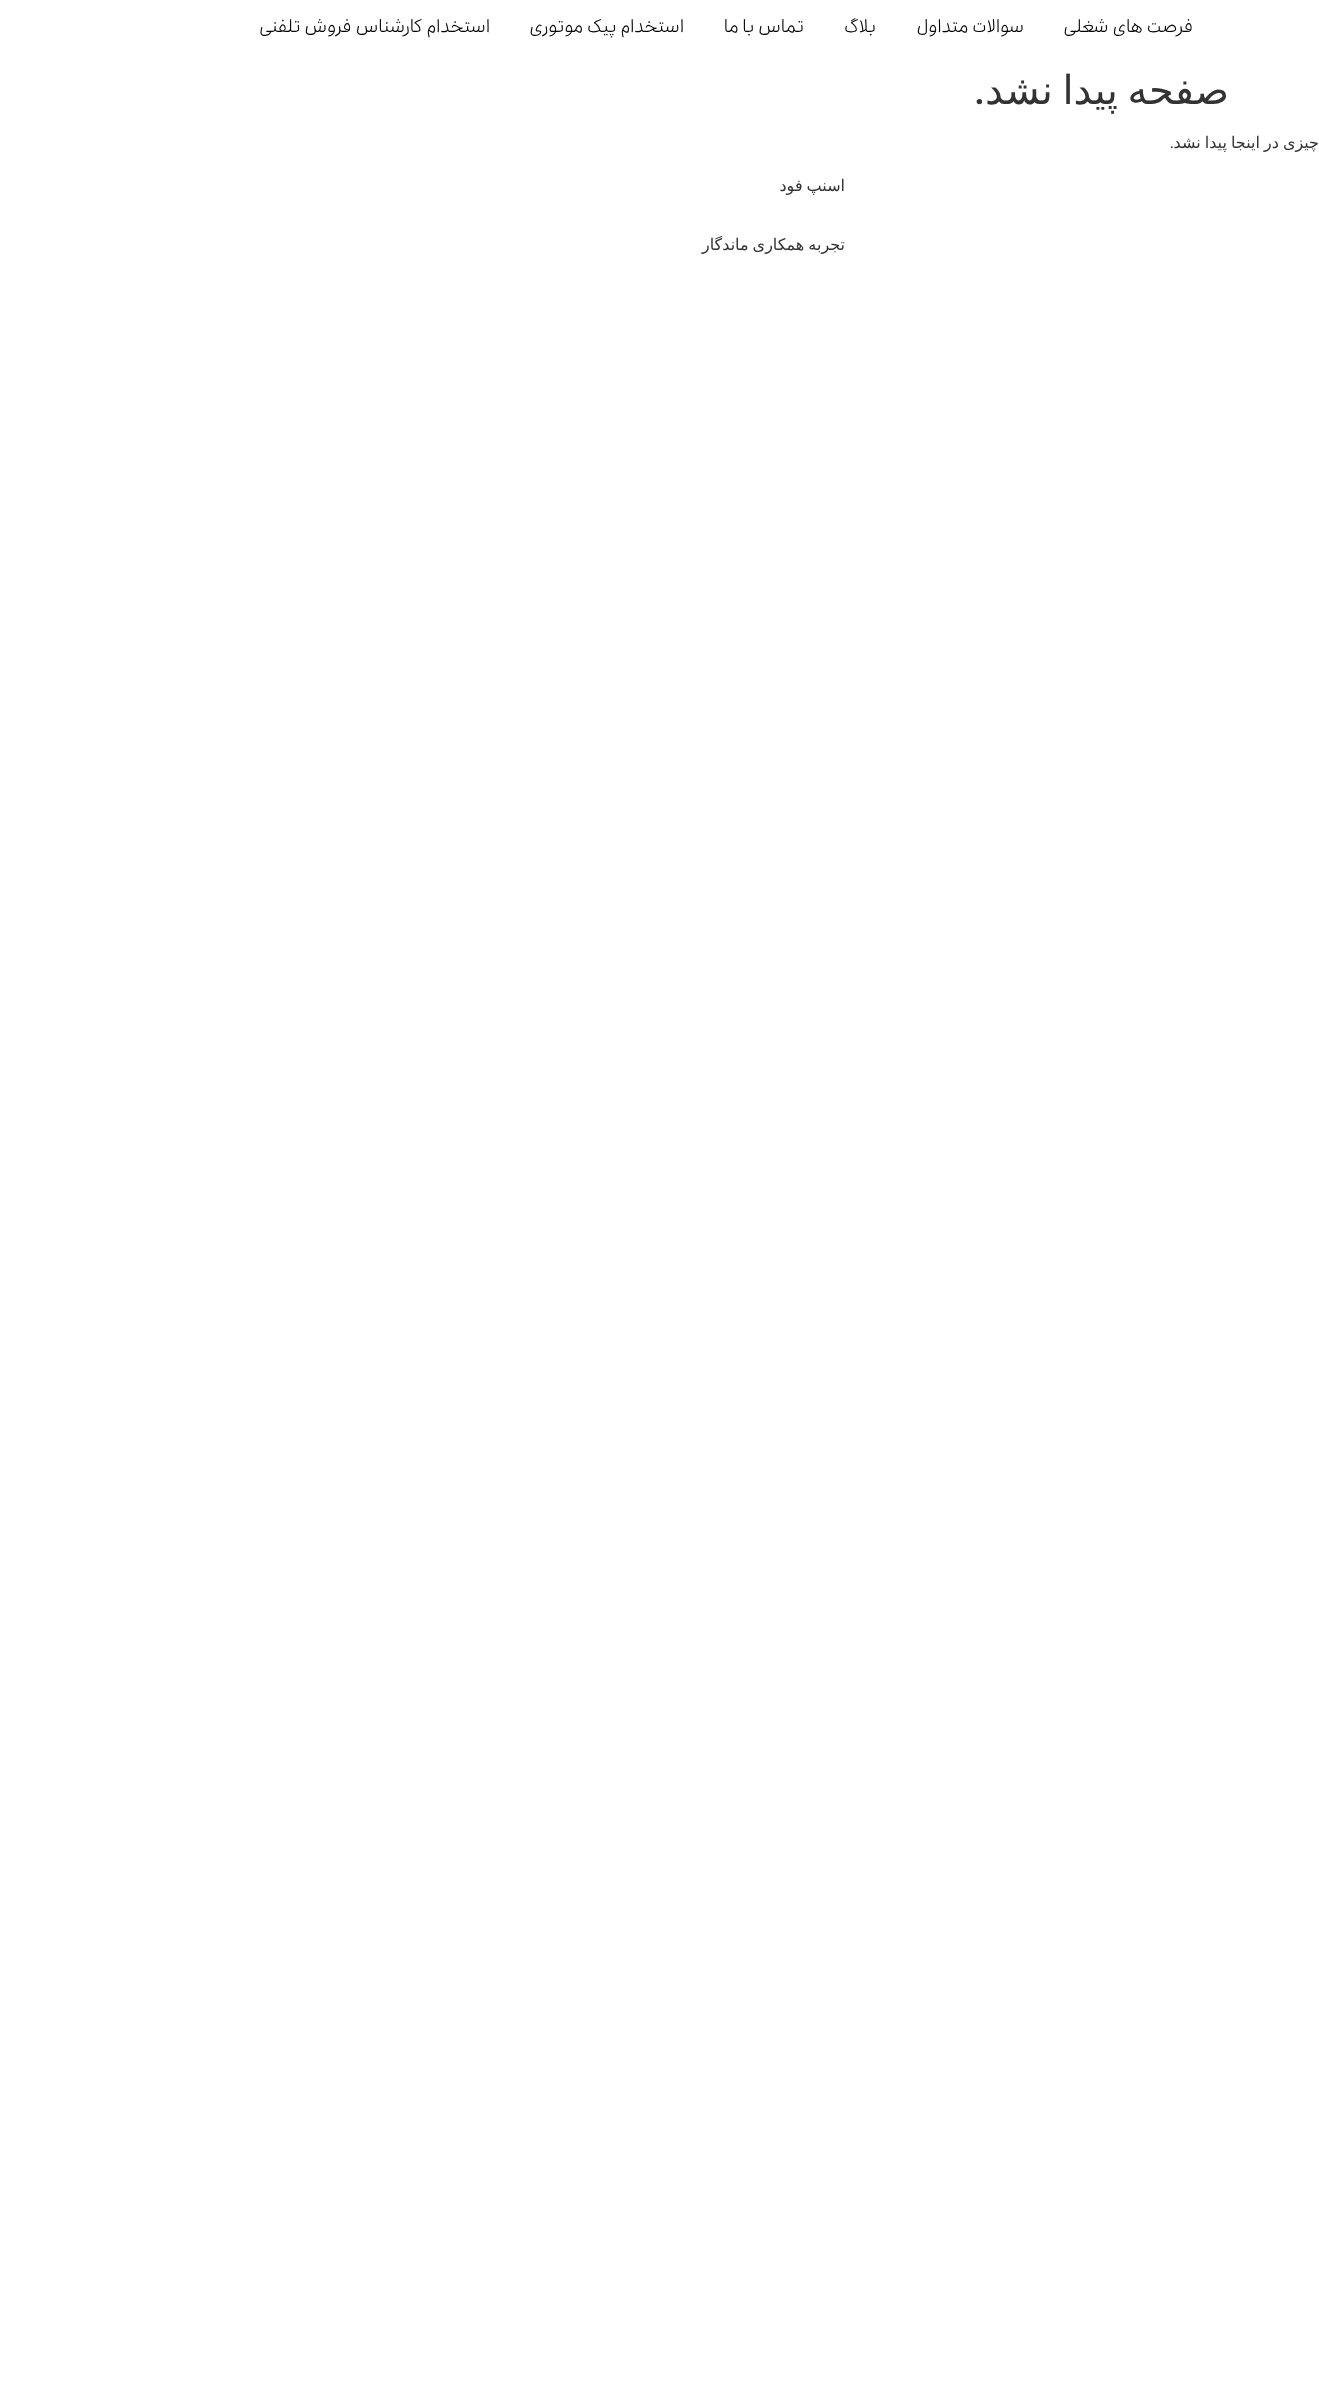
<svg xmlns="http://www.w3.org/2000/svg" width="1319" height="2399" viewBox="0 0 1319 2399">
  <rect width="100%" height="100%" fill="#fff"/>
  <g font-family="'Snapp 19'" font-size="16" direction="rtl" fill="#000">
    <text x="1193" y="32">فرصت های شغلی</text>
    <text x="1024" y="32">سوالات متداول</text>
    <text x="876" y="32">بلاگ</text>
    <text x="804" y="32">تماس با ما</text>
    <text x="684" y="32">استخدام پیک موتوری</text>
    <text x="490" y="32">استخدام کارشناس فروش تلفنی</text>
  </g>
  <text x="1229" y="104" word-spacing="-3" font-family="DejaVu Sans" font-size="40" direction="rtl" fill="#333">صفحه پیدا نشد</text>
  <text x="985" y="104" font-family="Roboto" font-size="40" font-weight="500" direction="rtl" fill="#333">.</text>
  <text x="1319" y="148" word-spacing="-1" font-family="DejaVu Sans" font-size="16" direction="rtl" fill="#333">چیزی در اینجا پیدا نشد</text>
  <text x="1174" y="148" font-family="Roboto" font-size="16" direction="rtl" fill="#333">.</text>
  <g font-family="DejaVu Sans" font-size="16" direction="rtl" fill="#333">
    <text x="845" y="191" word-spacing="-1">اسنپ فود</text>
    <text x="845" y="250" word-spacing="-1">تجربه همکاری ماندگار</text>
  </g>
</svg>
